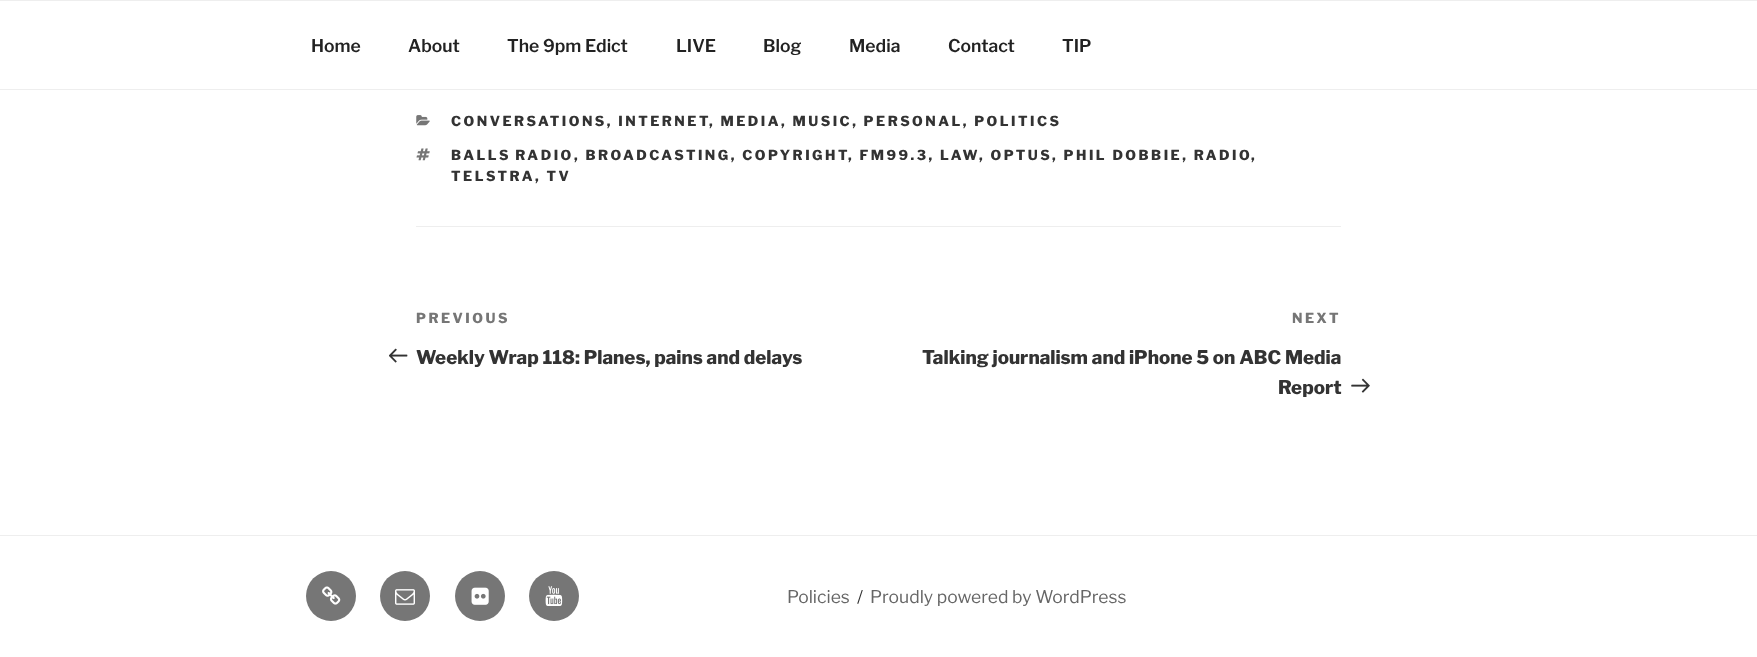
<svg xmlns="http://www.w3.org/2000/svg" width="1757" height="657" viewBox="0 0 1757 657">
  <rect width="100%" height="100%" fill="#fff"/>
  <path d="M0 0h1757v1H0z" fill="#eee"/>
  <path d="M0 89h1757v1H0z" fill="#eee"/>
  <path d="M416 226h925v1H416z" fill="#eee"/>
  <image x="416" y="115" width="14" height="11" href="img/1.png"/>
  <image x="416" y="148" width="14" height="13" href="img/2.png"/>
  <image x="389" y="348" width="19" height="15" href="img/3.png"/>
  <image x="1351" y="378" width="19" height="15" href="img/4.png"/>
  <path d="M0 535h1757v1H0z" fill="#eee"/>
  <circle cx="331" cy="596" r="25" fill="#767676"/>
  <image x="322" y="586" width="19" height="19" href="img/5.png"/>
  <circle cx="405" cy="596" r="25" fill="#767676"/>
  <image x="395" y="589" width="20" height="16" href="img/6.png"/>
  <circle cx="480" cy="596" r="25" fill="#767676"/>
  <image x="471" y="587" width="18" height="18" href="img/7.png"/>
  <circle cx="554" cy="596" r="25" fill="#767676"/>
  <image x="545" y="586" width="18" height="20" href="img/8.png"/>
  <g font-family="'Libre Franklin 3'" font-size="17.5" font-weight="100" fill="#222">
    <text x="311" y="52">Home</text>
    <text x="408" y="52">About</text>
    <text x="507" y="52">The 9pm Edict</text>
    <text x="676" y="52">LIVE</text>
    <text x="763" y="52">Blog</text>
    <text x="849" y="52">Media</text>
    <text x="948" y="52">Contact</text>
    <text x="1062" y="52">TIP</text>
  </g>
  <g font-family="Libre Franklin" font-size="13.75" font-weight="100" letter-spacing="2.5" fill="#333">
    <text x="451" y="126">CONVERSATIONS, INTERNET</text>
    <text x="709" y="126">, MEDIA, MUSIC, PERSONAL, POLITICS</text>
    <text x="451" y="160" word-spacing="-1">BALLS RADIO</text>
    <text x="574" y="160">, BROADCASTING, COPYRIGHT</text>
    <text x="848" y="160">, FM99.3, LAW</text>
    <text x="979" y="160">, OPTUS, PHIL DOBBIE, RADIO</text>
    <text x="1251" y="160">,</text>
    <text x="451" y="181">TELSTRA, TV</text>
  </g>
  <text x="416" y="323" font-family="Libre Franklin" font-size="13.75" font-weight="100" letter-spacing="2.5" fill="#767676">PREVIOUS</text>
  <text x="416" y="364" font-family="Libre Franklin" font-size="18.75" font-weight="100" fill="#333">Weekly Wrap 118: Planes, pains and delays</text>
  <text x="1292" y="323" font-family="Libre Franklin" font-size="13.75" font-weight="100" letter-spacing="2.5" fill="#767676">NEXT</text>
  <g font-family="Libre Franklin" font-size="18.75" font-weight="100" fill="#333">
    <text x="922" y="364">Talking journalism and iPhone 5 on ABC Media</text>
    <text x="1278" y="394">Report</text>
  </g>
  <text x="787" y="603" font-family="'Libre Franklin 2'" font-size="17.5" font-weight="100" fill="#666">Policies</text>
  <text x="857" y="603" font-family="'Libre Franklin 2'" font-size="17.5" font-weight="100" fill="#333">/</text>
  <text x="870" y="603" font-family="'Libre Franklin 2'" font-size="17.5" font-weight="100" fill="#666">Proudly powered by WordPress</text>
</svg>
